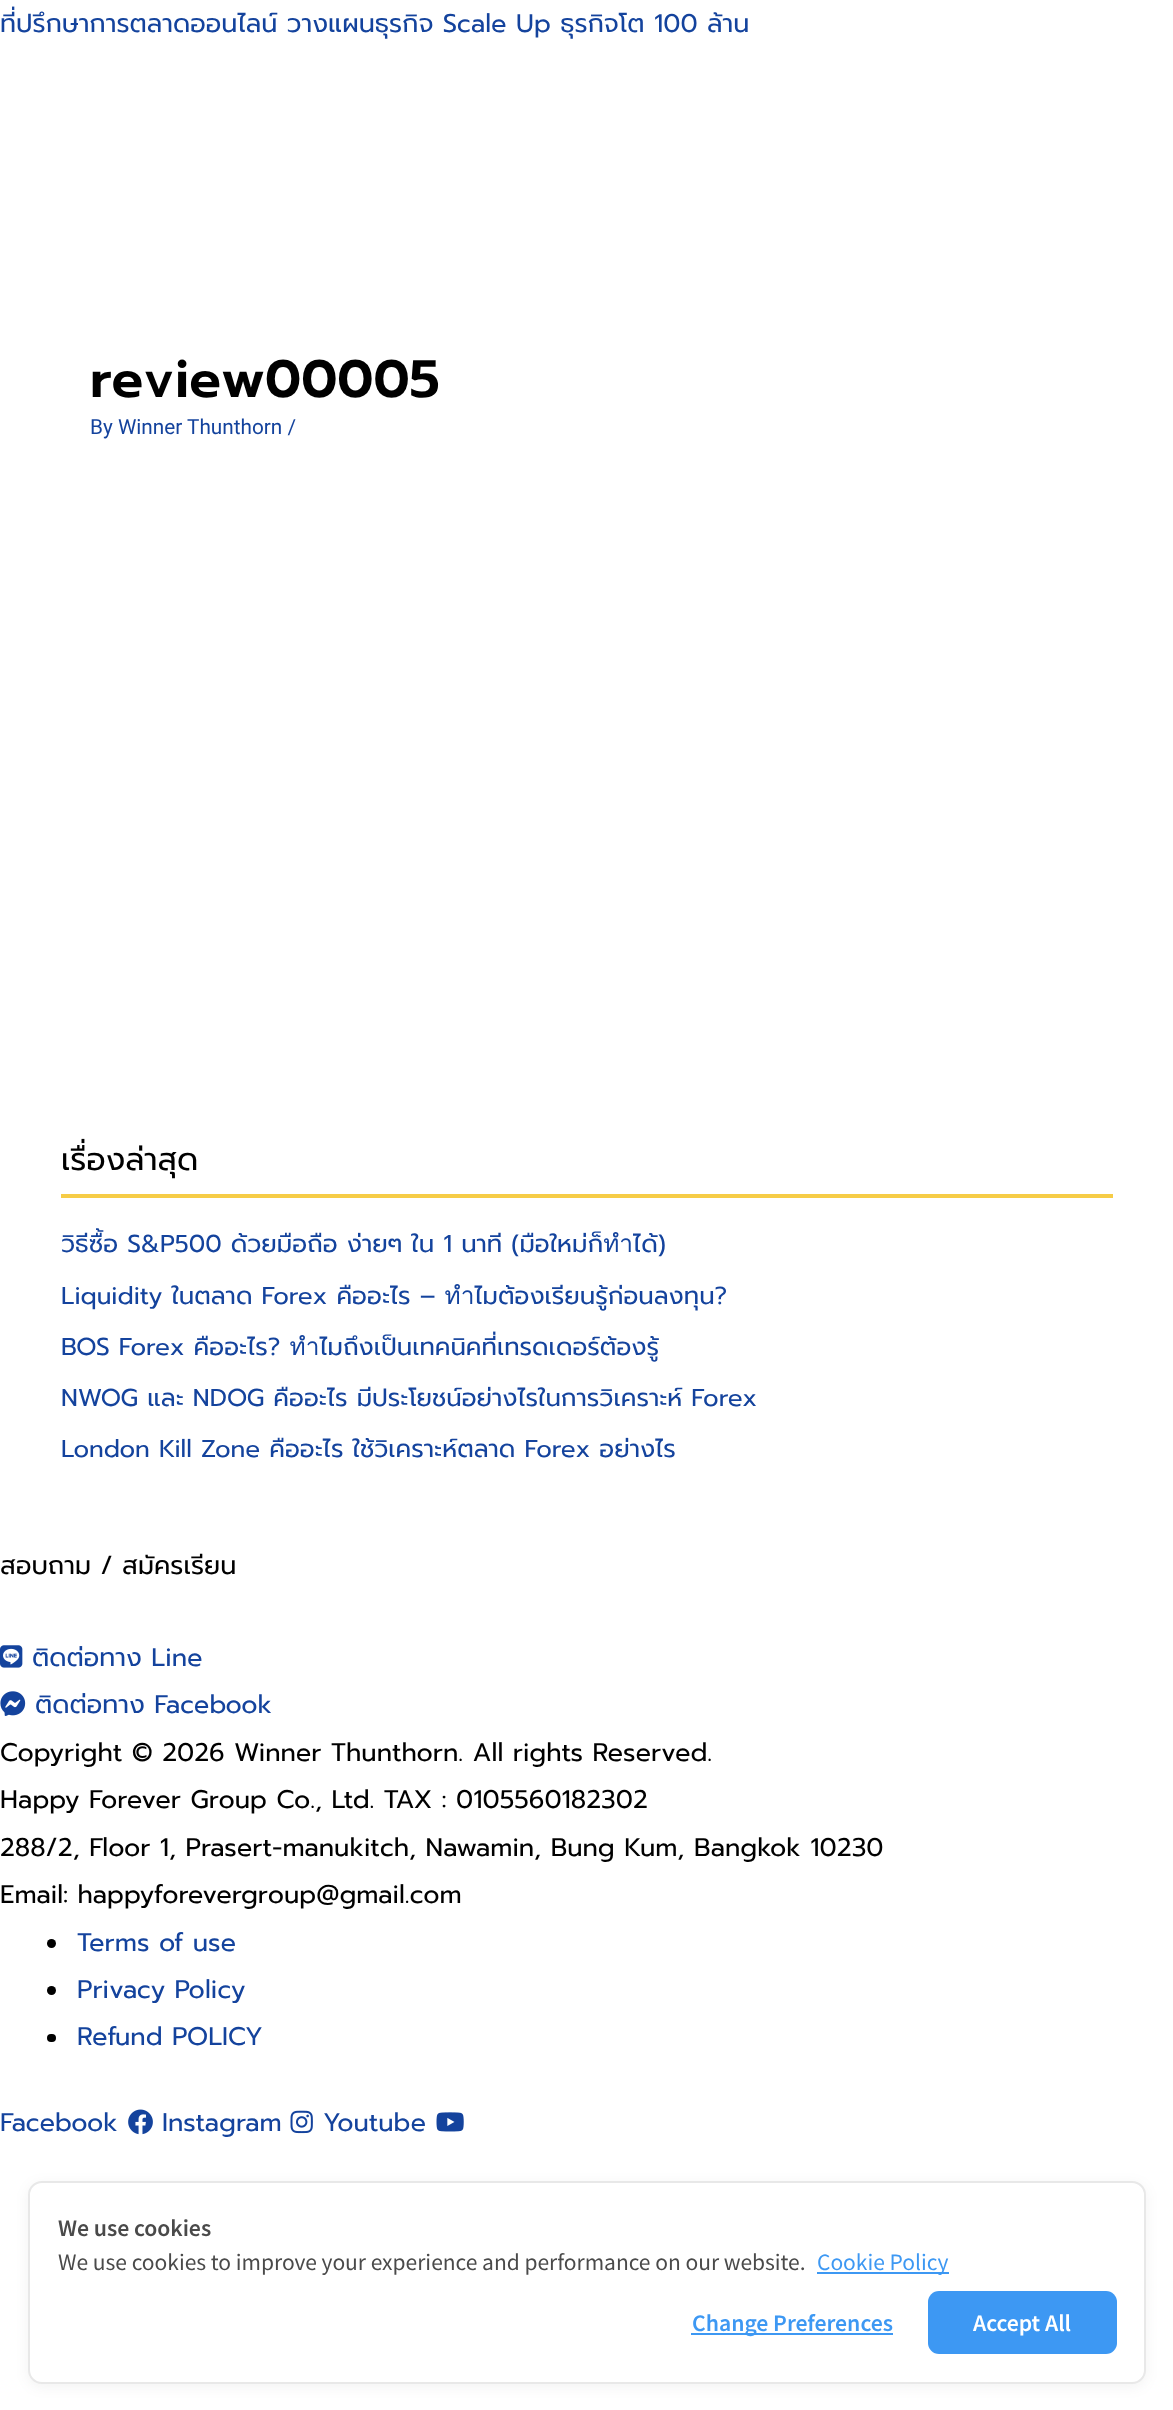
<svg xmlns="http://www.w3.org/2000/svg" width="1173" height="2410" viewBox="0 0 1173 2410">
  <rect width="100%" height="100%" fill="#fff"/>
  <path d="M61 1194h1052v4H61z" fill="#f6cc46"/>
  <image x="0" y="1645" width="23" height="23" href="img/1.png"/>
  <image x="0" y="1691" width="26" height="25" href="img/2.png"/>
  <circle cx="51.5" cy="1943.5" r="4.5" fill="#000"/>
  <circle cx="51.5" cy="1990.5" r="4.5" fill="#000"/>
  <rect x="47" y="2034" width="9" height="8" rx="4" fill="#000"/>
  <image x="128" y="2109" width="25" height="26" href="img/3.png"/>
  <image x="290" y="2110" width="23" height="24" href="img/4.png"/>
  <image x="436" y="2112" width="28" height="20" href="img/5.png"/>
  <rect x="28" y="2184" width="1118" height="203" rx="14" fill="#0000000d" filter="blur(7px)"/>
  <rect x="29" y="2182" width="1116" height="201" rx="13" fill="#fff" stroke="#e8e8e8" stroke-width="2"/>
  <path d="M817 2272h132v2H817z" fill="#3d98f3"/>
  <path d="M691 2333h202v2H691z" fill="#3d98f3"/>
  <rect x="928" y="2291" width="189" height="63" rx="11" fill="#3d98f3"/>
  <text x="0" y="32" font-family="Prompt" font-size="25.55" fill="#14439d">ที่ปรึกษาการตลาดออนไลน์ วางแผนธุรกิจ Scale Up ธุรกิจโต 100 ล้าน</text>
  <text x="90" y="397" font-family="Prompt" font-size="52.5" font-weight="600" fill="#000">review00005</text>
  <text x="90" y="434" font-family="Roboto" font-size="20.75" fill="#14439d">By Winner Thunthorn /</text>
  <text x="61" y="1170" font-family="Prompt" font-size="31.5" fill="#000">เรื่องล่าสุด</text>
  <g font-family="Prompt" font-size="24.5" fill="#14439d">
    <text x="61" y="1252">วิธีซื้อ S&amp;P500 ด้วยมือถือ ง่ายๆ ใน 1 นาที (มือใหม่ก็ทำได้)</text>
    <text x="61" y="1304">Liquidity ในตลาด Forex คืออะไร – ทำไมต้องเรียนรู้ก่อนลงทุน?</text>
    <text x="61" y="1355">BOS Forex คืออะไร? ทำไมถึงเป็นเทคนิคที่เทรดเดอร์ต้องรู้</text>
    <text x="61" y="1406">NWOG และ NDOG คืออะไร มีประโยชน์อย่างไรในการวิเคราะห์ Forex</text>
    <text x="61" y="1457">London Kill Zone คืออะไร ใช้วิเคราะห์ตลาด Forex อย่างไร</text>
  </g>
  <text x="0" y="1574" font-family="Prompt" font-size="25.55" fill="#000">สอบถาม / สมัครเรียน</text>
  <g font-family="Prompt" font-size="25.55" fill="#14439d">
    <text x="32" y="1666">ติดต่อทาง Line</text>
    <text x="35" y="1713">ติดต่อทาง Facebook</text>
  </g>
  <g font-family="Prompt" font-size="25.55" fill="#000">
    <text x="0" y="1761">Copyright © 2026 Winner Thunthorn. All rights Reserved.</text>
    <text x="0" y="1808">Happy Forever Group Co., Ltd. TAX : 0105560182302</text>
    <text x="0" y="1856">288/2, Floor 1, Prasert-manukitch, Nawamin, Bung Kum, Bangkok 10230</text>
    <text x="0" y="1903">Email: happyforevergroup@gmail.com</text>
  </g>
  <g font-family="Prompt" font-size="25.55" fill="#14439d">
    <text x="77" y="1951">Terms of use</text>
    <text x="77" y="1998">Privacy Policy</text>
    <text x="77" y="2045">Refund POLICY</text>
    <text x="0" y="2131">Facebook</text>
    <text x="162" y="2131">Instagram</text>
    <text x="323" y="2131">Youtube</text>
  </g>
  <text x="58" y="2236" font-family="Noto Sans JP" font-size="21" font-weight="600" fill="#4a4a4a">We use cookies</text>
  <text x="58" y="2270" font-family="Noto Sans JP" font-size="21" fill="#4a4a4a">We use cookies to improve your experience and performance on our website.</text>
  <text x="817" y="2270" font-family="Noto Sans JP" font-size="21" fill="#3d98f3">Cookie Policy</text>
  <text x="692" y="2331" font-family="Noto Sans JP" font-size="21" font-weight="600" fill="#3d98f3">Change Preferences</text>
  <text x="973" y="2331" font-family="Noto Sans JP" font-size="21" font-weight="600" fill="#fff">Accept All</text>
</svg>
